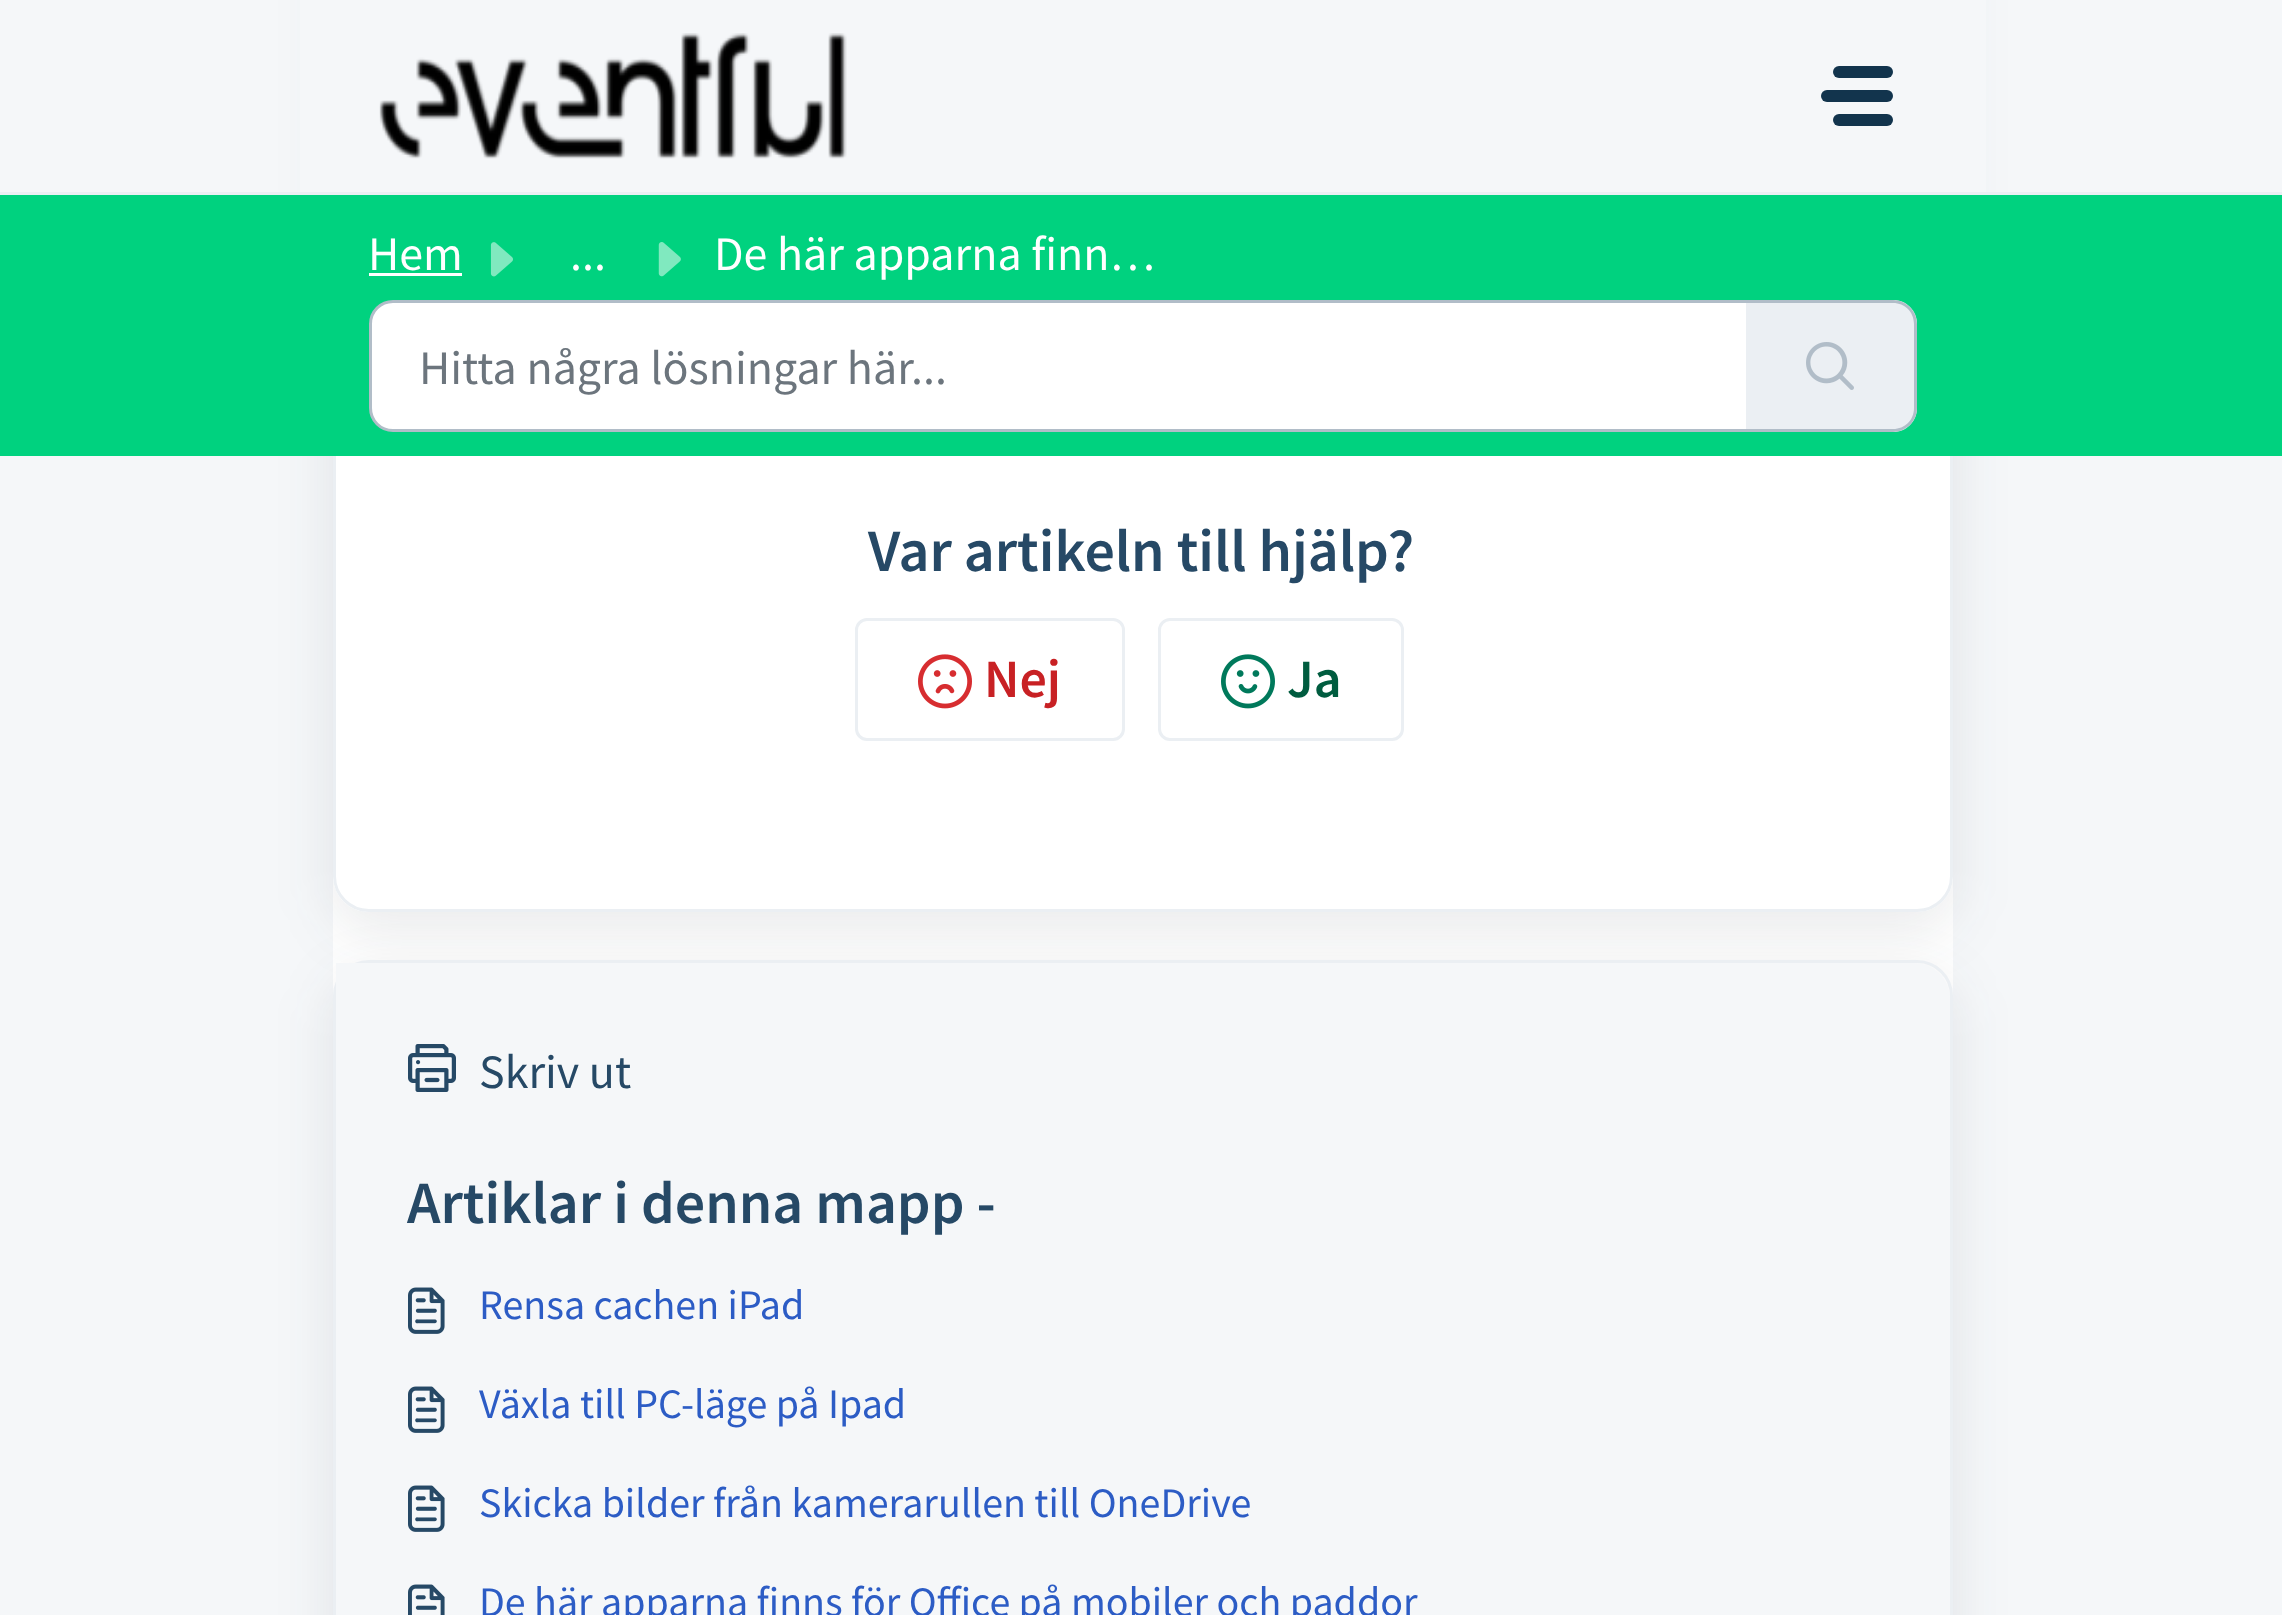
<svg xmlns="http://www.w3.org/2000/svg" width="2282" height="1615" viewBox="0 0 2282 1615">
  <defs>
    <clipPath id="clip1"><path d="M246 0H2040V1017H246ZM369-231H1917C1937-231 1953-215 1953-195V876C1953 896 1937 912 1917 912H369C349 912 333 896 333 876V-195C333-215 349-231 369-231Z" clip-rule="evenodd"/></clipPath>
  </defs>
  <rect width="100%" height="100%" fill="#f5f7f9"/>
  <path d="M333 456h1620v543H333z" fill="#fff"/>
  <g clip-path="url(#clip1)">
    <rect x="333" y="-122" width="1620" height="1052" rx="36" fill="#27313a1a" filter="blur(28.5px)"/>
  </g>
  <rect x="334.5" y="-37.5" width="1617" height="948" rx="34.5" fill="none" stroke="#ebeff3" stroke-width="3"/>
  <path d="M300 0h1686v192H300z" fill="#f5f7f9"/>
  <path d="M0 192h2282v3H0z" fill="#ebeff3"/>
  <image x="379" y="33" width="468" height="126" href="img/1.png"/>
  <rect x="1833" y="66" width="60" height="12" rx="6" fill="#12344d"/>
  <rect x="1821" y="90" width="72" height="12" rx="6" fill="#12344d"/>
  <rect x="1833" y="114" width="60" height="12" rx="6" fill="#12344d"/>
  <path d="M0 195h2282v261H0z" fill="#00d27f"/>
  <path d="M369 273h93v3H369z" fill="#fff"/>
  <image x="490" y="242" width="23" height="35" href="img/2.png"/>
  <image x="658" y="242" width="23" height="35" href="img/3.png"/>
  <path d="M393 301.5H1747.5V430.5H393C380.5 430.5 370.5 420.5 370.5 408V324C370.5 311.5 380.5 301.5 393 301.5Z" fill="#fff" stroke="#b1bdc8" stroke-width="3"/>
  <path d="M1746 300H1893C1906.5 300 1917 310.5 1917 324V408C1917 421.5 1906.5 432 1893 432H1746Z" fill="#ebeff3"/>
  <path d="M1746 300H1893C1906 300 1917 311 1917 324V408C1917 421 1906 432 1893 432H1746ZM1746 303H1893C1905 303 1914 312 1914 324V408C1914 420 1905 429 1893 429H1746Z" fill="#b1bdc8" fill-rule="evenodd"/>
  <image x="1806" y="342" width="48" height="48" href="img/4.png"/>
  <rect x="856.5" y="619.5" width="267" height="120" rx="10.5" fill="none" stroke="#ebeff3" stroke-width="3"/>
  <image x="918" y="654" width="54" height="55" href="img/5.png"/>
  <rect x="1159.5" y="619.5" width="243" height="120" rx="10.5" fill="none" stroke="#ebeff3" stroke-width="3"/>
  <image x="1221" y="654" width="54" height="55" href="img/6.png"/>
  <rect x="333" y="978" width="1620" height="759" rx="36" fill="#27313a1a" filter="blur(28.5px)"/>
  <rect x="334.5" y="961.5" width="1617" height="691" rx="34.5" fill="none" stroke="#ebeff3" stroke-width="3"/>
  <path d="M336 963H1914C1934 963 1950 979 1950 999V1615C1950 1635 1934 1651 1914 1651H336Z" fill="#f5f7f9"/>
  <image x="408" y="1044" width="48" height="48" href="img/7.png"/>
  <image x="408" y="1287" width="37" height="47" href="img/8.png"/>
  <image x="408" y="1386" width="37" height="47" href="img/8.png"/>
  <image x="408" y="1485" width="37" height="47" href="img/8.png"/>
  <image x="408" y="1584" width="37" height="31" href="img/9.png"/>
  <g font-family="Source Sans Pro" font-size="48" fill="#fff">
    <text x="368" y="270">Hem</text>
    <text x="570" y="270">...</text>
    <text x="714" y="270">De här apparna finn…</text>
  </g>
  <text x="419" y="384" font-family="Source Sans Pro" font-size="48" fill="#6c757d">Hitta några lösningar här...</text>
  <text x="868" y="571" font-family="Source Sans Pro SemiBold" font-size="60" font-weight="600" fill="#264966">Var artikeln till hjälp?</text>
  <text x="984" y="697" font-family="Source Sans Pro SemiBold" font-size="54" font-weight="600" fill="#c82124">Nej</text>
  <text x="1287" y="697" font-family="Source Sans Pro SemiBold" font-size="54" font-weight="600" fill="#005c3f">Ja</text>
  <text x="479" y="1088" font-family="Source Sans Pro" font-size="48" fill="#264966">Skriv ut</text>
  <text x="407" y="1223" font-family="Source Sans Pro SemiBold" font-size="60" font-weight="600" fill="#264966">Artiklar i denna mapp -</text>
  <g font-family="Source Sans Pro" font-size="42" fill="#2c5cc5">
    <text x="479" y="1319">Rensa cachen iPad</text>
    <text x="479" y="1418">Växla till PC-läge på Ipad</text>
    <text x="479" y="1517">Skicka bilder från kamerarullen till OneDrive</text>
    <text x="479" y="1616">De här apparna finns för Office på mobiler och paddor</text>
  </g>
</svg>
